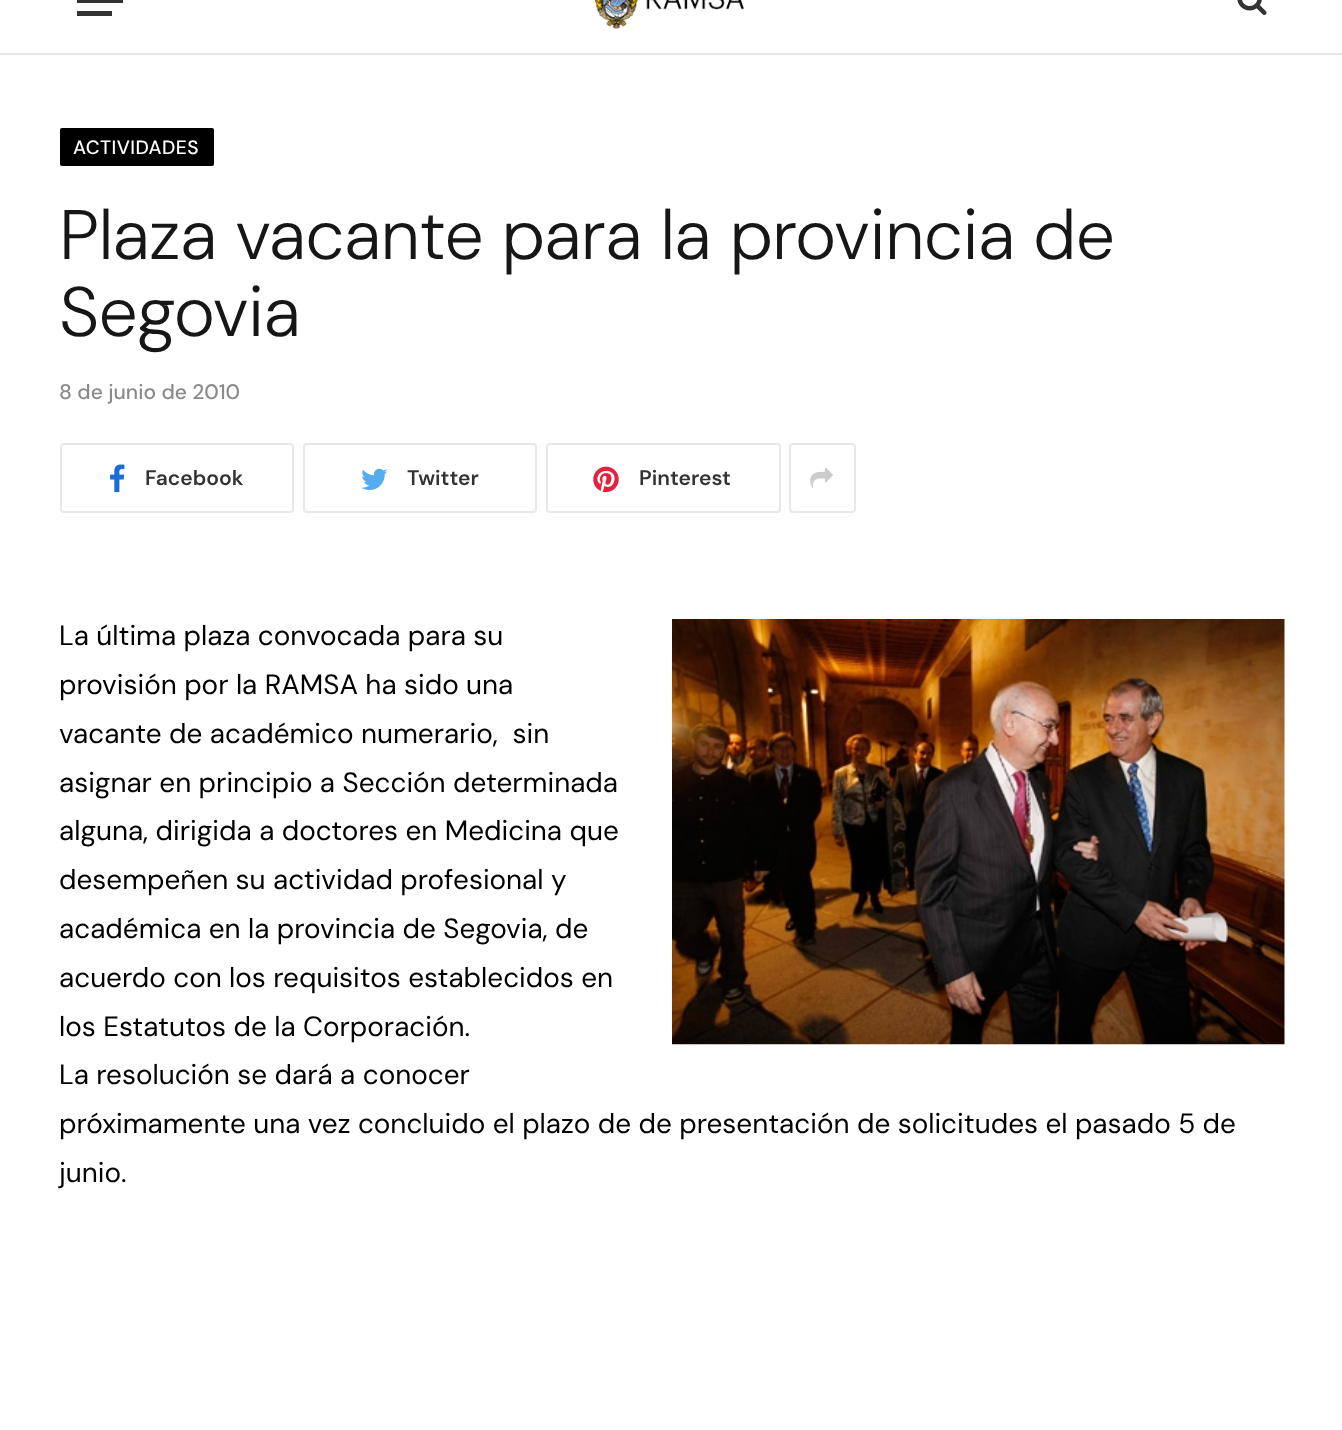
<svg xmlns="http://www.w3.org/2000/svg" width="1342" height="1430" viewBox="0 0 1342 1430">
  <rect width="100%" height="100%" fill="#fff"/>
  <path d="M0 53h1342v2H0z" fill="#e8e8e8"/>
  <path d="M77 11h35v5H77z" fill="#333"/>
  <path d="M77 0h46v3H77z" fill="#333"/>
  <image x="594" y="0" width="151" height="29" href="img/1.png"/>
  <image x="1237" y="0" width="30" height="15" href="img/2.png"/>
  <rect x="60" y="128" width="154" height="38" rx="2" fill="#000"/>
  <rect x="61" y="444" width="232" height="68" rx="3" fill="none" stroke="#e8e8e8" stroke-width="2"/>
  <image x="110" y="464" width="15" height="29" href="img/3.png"/>
  <rect x="304" y="444" width="232" height="68" rx="3" fill="none" stroke="#e8e8e8" stroke-width="2"/>
  <image x="361" y="468" width="27" height="22" href="img/4.png"/>
  <rect x="547" y="444" width="233" height="68" rx="3" fill="none" stroke="#e8e8e8" stroke-width="2"/>
  <image x="593" y="466" width="26" height="27" href="img/5.png"/>
  <rect x="790" y="444" width="65" height="68" rx="3" fill="none" stroke="#e8e8e8" stroke-width="2"/>
  <image x="810" y="467" width="23" height="21" href="img/6.png"/>
  <image x="672" y="619" width="613" height="426" href="img/7.png"/>
  <text x="73" y="154" font-family="DM Sans" font-size="19.25" font-weight="500" letter-spacing="0.5" fill="#fff">ACTIVIDADES</text>
  <g font-family="DM Sans" font-size="70" font-weight="300" letter-spacing="-0.7" fill="#161616">
    <text x="59" y="259">Plaza vacante para la provincia de</text>
    <text x="59" y="336">Segovia</text>
  </g>
  <text x="59" y="399" font-family="DM Sans" font-size="21" font-weight="500" fill="#8a8a8a">8 de junio de 2010</text>
  <g font-family="DM Sans" font-size="21" font-weight="600" fill="#333">
    <text x="145" y="485">Facebook</text>
    <text x="407" y="485">Twitter</text>
    <text x="639" y="485">Pinterest</text>
  </g>
  <g font-family="DM Sans" font-size="27.9" fill="#000">
    <text x="59" y="645">La última plaza convocada para su</text>
    <text x="59" y="694">provisión por la RAMSA ha sido una</text>
    <text x="59" y="743" xml:space="preserve">vacante de académico numerario,  sin</text>
    <text x="59" y="792">asignar en principio a Sección determinada</text>
    <text x="59" y="840">alguna, dirigida a doctores en Medicina que</text>
    <text x="59" y="889">desempeñen su actividad profesional y</text>
    <text x="59" y="938">académica en la provincia de Segovia, de</text>
    <text x="59" y="987">acuerdo con los requisitos establecidos en</text>
    <text x="59" y="1036">los Estatutos de la Corporación.</text>
    <text x="59" y="1084">La resolución se dará a conocer</text>
    <text x="59" y="1133">próximamente una vez concluido el plazo de de presentación de solicitudes el pasado 5 de</text>
    <text x="59" y="1182">junio.</text>
  </g>
</svg>
